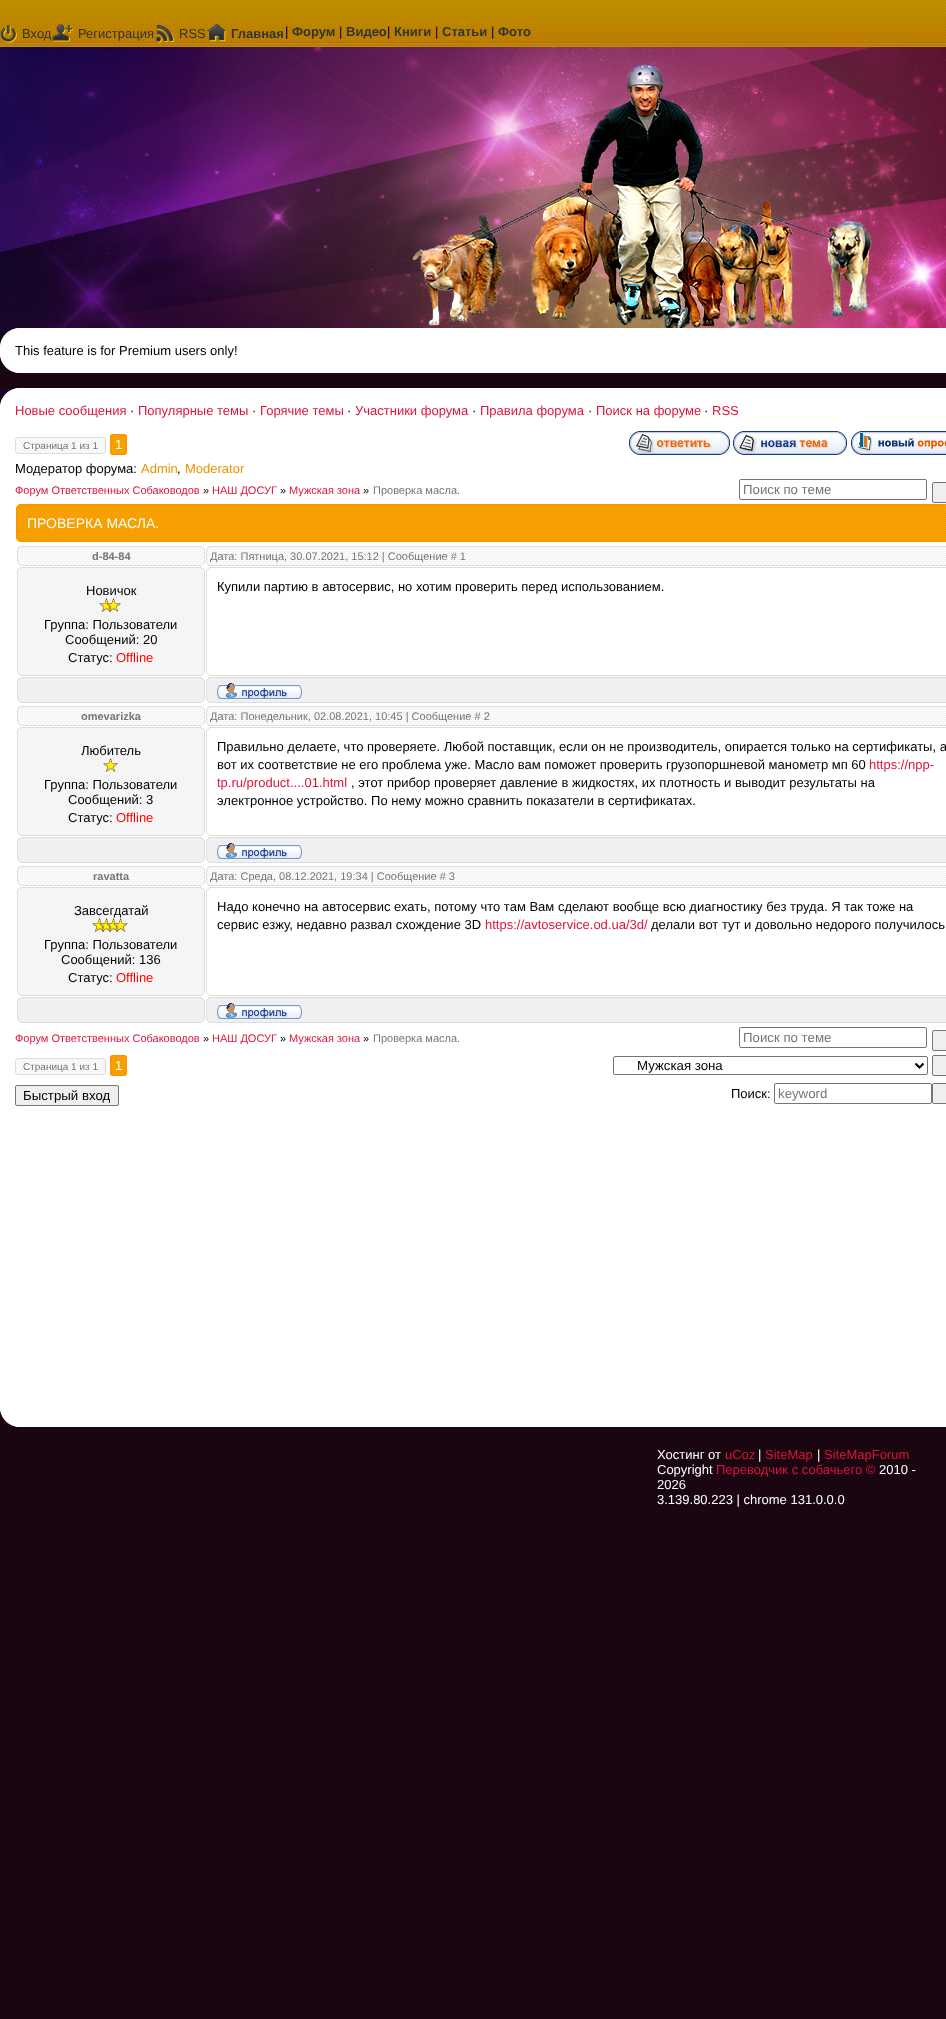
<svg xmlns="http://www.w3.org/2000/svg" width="946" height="2019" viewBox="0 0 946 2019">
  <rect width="100%" height="100%" fill="#190611"/>
  <image x="0" y="47" width="946" height="281" href="img/1.png"/>
  <image x="0" y="0" width="946" height="46" href="img/2.png"/>
  <image x="0" y="25" width="17" height="18" href="img/3.png"/>
  <image x="52" y="24" width="22" height="18" href="img/4.png"/>
  <image x="155" y="24" width="20" height="19" href="img/5.png"/>
  <image x="207" y="24" width="20" height="18" href="img/6.png"/>
  <image x="0" y="46" width="946" height="1" href="img/7.png"/>
  <path d="M0 328h946v45H0z" fill="#fff"/>
  <image x="0" y="328" width="18" height="18" href="img/8.png"/>
  <image x="0" y="355" width="18" height="18" href="img/9.png"/>
  <path d="M0 388h946v1039H0z" fill="#fff"/>
  <image x="0" y="388" width="18" height="18" href="img/8.png"/>
  <image x="0" y="1409" width="18" height="18" href="img/9.png"/>
  <image x="15" y="437" width="91" height="17" href="img/10.png"/>
  <rect x="15.5" y="437.5" width="90" height="16" rx="2.5" fill="none" stroke="#ddd"/>
  <image x="110" y="434" width="17" height="21" href="img/11.png"/>
  <rect x="110.5" y="434.5" width="16" height="20" rx="2.5" fill="none" stroke="#ff9102"/>
  <image x="629" y="431" width="101" height="24" href="img/12.png"/>
  <image x="733" y="431" width="114" height="24" href="img/13.png"/>
  <image x="851" y="431" width="95" height="24" href="img/14.png"/>
  <rect x="739.5" y="479.5" width="187" height="20" rx="1.5" fill="none" stroke="#767676"/>
  <rect x="932.5" y="482.5" width="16" height="20" rx="1.5" fill="#efefef" stroke="#767676"/>
  <image x="16" y="504" width="930" height="38" href="img/15.png"/>
  <rect x="16.5" y="504.5" width="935" height="37" rx="4.5" fill="none" stroke="#ff9102"/>
  <image x="17" y="546" width="188" height="20" href="img/16.png"/>
  <rect x="17.5" y="546.5" width="187" height="19" rx="4.5" fill="none" stroke="#ddd"/>
  <image x="206" y="546" width="740" height="20" href="img/17.png"/>
  <rect x="206.5" y="546.5" width="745" height="19" rx="4.5" fill="none" stroke="#ddd"/>
  <rect x="17.5" y="567.5" width="187" height="108" rx="4.5" fill="#f5f5f5" stroke="#ddd"/>
  <image x="99" y="598" width="22" height="14" href="img/18.png"/>
  <rect x="206.5" y="567.5" width="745" height="108" rx="4.5" fill="none" stroke="#ddd"/>
  <rect x="17.5" y="677.5" width="187" height="25" rx="4.5" fill="#f0f0f0" stroke="#ddd"/>
  <rect x="206.5" y="677.5" width="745" height="25" rx="4.5" fill="#f0f0f0" stroke="#ddd"/>
  <image x="217" y="683" width="85" height="16" href="img/19.png"/>
  <image x="17" y="706" width="188" height="20" href="img/16.png"/>
  <rect x="17.5" y="706.5" width="187" height="19" rx="4.5" fill="none" stroke="#ddd"/>
  <image x="206" y="706" width="740" height="20" href="img/17.png"/>
  <rect x="206.5" y="706.5" width="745" height="19" rx="4.5" fill="none" stroke="#ddd"/>
  <rect x="17.5" y="727.5" width="187" height="108" rx="4.5" fill="#f5f5f5" stroke="#ddd"/>
  <image x="103" y="758" width="15" height="14" href="img/20.png"/>
  <rect x="206.5" y="727.5" width="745" height="108" rx="4.5" fill="none" stroke="#ddd"/>
  <rect x="17.5" y="837.5" width="187" height="25" rx="4.5" fill="#f0f0f0" stroke="#ddd"/>
  <rect x="206.5" y="837.5" width="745" height="25" rx="4.5" fill="#f0f0f0" stroke="#ddd"/>
  <image x="217" y="843" width="85" height="16" href="img/19.png"/>
  <image x="17" y="866" width="188" height="20" href="img/16.png"/>
  <rect x="17.5" y="866.5" width="187" height="19" rx="4.5" fill="none" stroke="#ddd"/>
  <image x="206" y="866" width="740" height="20" href="img/17.png"/>
  <rect x="206.5" y="866.5" width="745" height="19" rx="4.5" fill="none" stroke="#ddd"/>
  <rect x="17.5" y="887.5" width="187" height="108" rx="4.5" fill="#f5f5f5" stroke="#ddd"/>
  <image x="92" y="918" width="36" height="14" href="img/21.png"/>
  <rect x="206.5" y="887.5" width="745" height="108" rx="4.5" fill="none" stroke="#ddd"/>
  <rect x="17.5" y="997.5" width="187" height="25" rx="4.5" fill="#f0f0f0" stroke="#ddd"/>
  <rect x="206.5" y="997.5" width="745" height="25" rx="4.5" fill="#f0f0f0" stroke="#ddd"/>
  <image x="217" y="1003" width="85" height="16" href="img/19.png"/>
  <rect x="739.5" y="1027.5" width="187" height="20" rx="1.5" fill="none" stroke="#767676"/>
  <rect x="932.5" y="1030.5" width="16" height="20" rx="1.5" fill="#efefef" stroke="#767676"/>
  <image x="15" y="1058" width="91" height="17" href="img/10.png"/>
  <rect x="15.5" y="1058.5" width="90" height="16" rx="2.5" fill="none" stroke="#ddd"/>
  <image x="110" y="1055" width="17" height="21" href="img/11.png"/>
  <rect x="110.5" y="1055.5" width="16" height="20" rx="2.5" fill="none" stroke="#ff9102"/>
  <rect x="613.5" y="1056.5" width="314" height="18" rx="1.5" fill="none" stroke="#767676"/>
  <path d="M915.5 1063.5L919.5 1067.5L923.5 1063.5" fill="none" stroke="#000" stroke-width="2"/>
  <rect x="932.5" y="1055.5" width="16" height="20" rx="1.5" fill="#efefef" stroke="#767676"/>
  <rect x="15.5" y="1085.5" width="103" height="20" rx="1.5" fill="#efefef" stroke="#767676"/>
  <rect x="774.5" y="1083.5" width="157" height="20" rx="1.5" fill="none" stroke="#767676"/>
  <rect x="932.5" y="1083.5" width="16" height="20" rx="1.5" fill="#efefef" stroke="#767676"/>
  <g font-family="Liberation Sans" font-size="13" fill="#333">
    <text x="22" y="38">Вход</text>
    <text x="78" y="38">Регистрация</text>
    <text x="179" y="38">RSS</text>
  </g>
  <text x="231" y="38" font-family="Liberation Sans" font-size="13" font-weight="bold" fill="#333">Главная</text>
  <text x="285" y="36" font-family="Liberation Sans" font-size="13" fill="#000">|</text>
  <text x="292" y="36" font-family="Liberation Sans" font-size="13" font-weight="bold" fill="#333">Форум</text>
  <text x="339" y="36" font-family="Liberation Sans" font-size="13" fill="#000">|</text>
  <text x="346" y="36" font-family="Liberation Sans" font-size="13" font-weight="bold" fill="#333">Видео</text>
  <text x="387" y="36" font-family="Liberation Sans" font-size="13" fill="#000">|</text>
  <text x="394" y="36" font-family="Liberation Sans" font-size="13" font-weight="bold" fill="#333">Книги</text>
  <text x="435" y="36" font-family="Liberation Sans" font-size="13" fill="#000">|</text>
  <text x="442" y="36" font-family="Liberation Sans" font-size="13" font-weight="bold" fill="#333">Статьи</text>
  <text x="491" y="36" font-family="Liberation Sans" font-size="13" fill="#000">|</text>
  <text x="498" y="36" font-family="Liberation Sans" font-size="13" font-weight="bold" fill="#333">Фото</text>
  <text x="15" y="355" font-family="Liberation Sans" font-size="13" fill="#000">This feature is for Premium users only!</text>
  <text x="15" y="415" font-family="Liberation Sans" font-size="13" fill="#dc143c">Новые сообщения</text>
  <text x="130" y="415" font-family="Liberation Sans" font-size="13" fill="#000">·</text>
  <text x="138" y="415" font-family="Liberation Sans" font-size="13" fill="#dc143c">Популярные темы</text>
  <text x="252" y="415" font-family="Liberation Sans" font-size="13" fill="#000">·</text>
  <text x="260" y="415" font-family="Liberation Sans" font-size="13" fill="#dc143c">Горячие темы</text>
  <text x="347" y="415" font-family="Liberation Sans" font-size="13" fill="#000">·</text>
  <text x="355" y="415" font-family="Liberation Sans" font-size="13" fill="#dc143c">Участники форума</text>
  <text x="472" y="415" font-family="Liberation Sans" font-size="13" fill="#000">·</text>
  <text x="480" y="415" font-family="Liberation Sans" font-size="13" fill="#dc143c">Правила форума</text>
  <text x="588" y="415" font-family="Liberation Sans" font-size="13" fill="#000">·</text>
  <text x="596" y="415" font-family="Liberation Sans" font-size="13" fill="#dc143c">Поиск на форуме</text>
  <text x="704" y="415" font-family="Liberation Sans" font-size="13" fill="#000">·</text>
  <text x="712" y="415" font-family="Liberation Sans" font-size="13" fill="#dc143c">RSS</text>
  <text x="23" y="449" font-family="Liberation Sans" font-size="10" fill="#757575">Страница 1 из 1</text>
  <text x="115" y="449" font-family="Liberation Sans" font-size="13" fill="#fff">1</text>
  <text x="15" y="473" font-family="Liberation Sans" font-size="13" fill="#000">Модератор форума:</text>
  <text x="141" y="473" font-family="Liberation Sans" font-size="13" fill="#ec9300">Admin</text>
  <text x="177" y="473" font-family="Liberation Sans" font-size="13" fill="#000">,</text>
  <text x="185" y="473" font-family="Liberation Sans" font-size="13" fill="#ec9300">Moderator</text>
  <text x="15" y="494" font-family="Liberation Sans" font-size="11" fill="#dc143c">Форум Ответственных Собаководов</text>
  <text x="203" y="494" font-family="Liberation Sans" font-size="11" fill="#000">»</text>
  <text x="212" y="494" font-family="Liberation Sans" font-size="11" fill="#dc143c">НАШ ДОСУГ</text>
  <text x="280" y="494" font-family="Liberation Sans" font-size="11" fill="#000">»</text>
  <text x="289" y="494" font-family="Liberation Sans" font-size="11" fill="#dc143c">Мужская зона</text>
  <text x="363" y="494" font-family="Liberation Sans" font-size="11" fill="#000">»</text>
  <text x="373" y="494" font-family="Liberation Sans" font-size="11" fill="#757575">Проверка масла.</text>
  <text x="743" y="494" font-family="Liberation Sans" font-size="13.25" fill="#757575">Поиск по теме</text>
  <text x="27" y="528" font-family="Liberation Sans" font-size="14" fill="#fff">ПРОВЕРКА МАСЛА.</text>
  <text x="92" y="560" font-family="Liberation Sans" font-size="11" font-weight="bold" fill="#757575">d-84-84</text>
  <text x="210" y="560" font-family="Liberation Sans" font-size="11" fill="#757575">Дата: Пятница, 30.07.2021, 15:12 | Сообщение # 1</text>
  <g font-family="Liberation Sans" font-size="13" fill="#000">
    <text x="86" y="595">Новичок</text>
    <text x="44" y="629">Группа: Пользователи</text>
    <text x="65" y="644">Сообщений: 20</text>
    <text x="68" y="662">Статус:</text>
  </g>
  <text x="116" y="662" font-family="Liberation Sans" font-size="13" fill="#f00">Offline</text>
  <text x="217" y="591" font-family="Liberation Sans" font-size="13" fill="#000">Купили партию в автосервис, но хотим проверить перед использованием.</text>
  <text x="81" y="720" font-family="Liberation Sans" font-size="11" font-weight="bold" fill="#757575">omevarizka</text>
  <text x="210" y="720" font-family="Liberation Sans" font-size="11" fill="#757575">Дата: Понедельник, 02.08.2021, 10:45 | Сообщение # 2</text>
  <g font-family="Liberation Sans" font-size="13" fill="#000">
    <text x="81" y="755">Любитель</text>
    <text x="44" y="789">Группа: Пользователи</text>
    <text x="68" y="804">Сообщений: 3</text>
    <text x="68" y="822">Статус:</text>
  </g>
  <text x="116" y="822" font-family="Liberation Sans" font-size="13" fill="#f00">Offline</text>
  <g font-family="Liberation Sans" font-size="13" fill="#000">
    <text x="217" y="751">Правильно делаете, что проверяете. Любой поставщик, если он не производитель, опирается только на сертификаты, а</text>
    <text x="217" y="769">вот их соответствие не его проблема уже. Масло вам поможет проверить грузопоршневой манометр мп 60</text>
  </g>
  <g font-family="Liberation Sans" font-size="13" fill="#dc143c">
    <text x="869" y="769">https://npp-</text>
    <text x="217" y="787">tp.ru/product....01.html</text>
  </g>
  <g font-family="Liberation Sans" font-size="13" fill="#000">
    <text x="351" y="787">, этот прибор проверяет давление в жидкостях, их плотность и выводит результаты на</text>
    <text x="217" y="805">электронное устройство. По нему можно сравнить показатели в сертификатах.</text>
  </g>
  <text x="93" y="880" font-family="Liberation Sans" font-size="11" font-weight="bold" fill="#757575">ravatta</text>
  <text x="210" y="880" font-family="Liberation Sans" font-size="11" fill="#757575">Дата: Среда, 08.12.2021, 19:34 | Сообщение # 3</text>
  <g font-family="Liberation Sans" font-size="13" fill="#000">
    <text x="74" y="915">Завсегдатай</text>
    <text x="44" y="949">Группа: Пользователи</text>
    <text x="61" y="964">Сообщений: 136</text>
    <text x="68" y="982">Статус:</text>
  </g>
  <text x="116" y="982" font-family="Liberation Sans" font-size="13" fill="#f00">Offline</text>
  <g font-family="Liberation Sans" font-size="13" fill="#000">
    <text x="217" y="911">Надо конечно на автосервис ехать, потому что там Вам сделают вообще всю диагностику без труда. Я так тоже на</text>
    <text x="217" y="929">сервис езжу, недавно развал схождение 3D</text>
  </g>
  <text x="485" y="929" font-family="Liberation Sans" font-size="13" fill="#dc143c">https://avtoservice.od.ua/3d/</text>
  <text x="651" y="929" font-family="Liberation Sans" font-size="13" fill="#000">делали вот тут и довольно недорого получилось</text>
  <text x="15" y="1042" font-family="Liberation Sans" font-size="11" fill="#dc143c">Форум Ответственных Собаководов</text>
  <text x="203" y="1042" font-family="Liberation Sans" font-size="11" fill="#000">»</text>
  <text x="212" y="1042" font-family="Liberation Sans" font-size="11" fill="#dc143c">НАШ ДОСУГ</text>
  <text x="280" y="1042" font-family="Liberation Sans" font-size="11" fill="#000">»</text>
  <text x="289" y="1042" font-family="Liberation Sans" font-size="11" fill="#dc143c">Мужская зона</text>
  <text x="363" y="1042" font-family="Liberation Sans" font-size="11" fill="#000">»</text>
  <text x="373" y="1042" font-family="Liberation Sans" font-size="11" fill="#757575">Проверка масла.</text>
  <text x="743" y="1042" font-family="Liberation Sans" font-size="13.25" fill="#757575">Поиск по теме</text>
  <text x="23" y="1070" font-family="Liberation Sans" font-size="10" fill="#757575">Страница 1 из 1</text>
  <text x="115" y="1070" font-family="Liberation Sans" font-size="13" fill="#fff">1</text>
  <g font-family="Liberation Sans" font-size="13.25" fill="#000">
    <text x="637" y="1070">Мужская зона</text>
    <text x="23" y="1100">Быстрый вход</text>
  </g>
  <text x="731" y="1098" font-family="Liberation Sans" font-size="13" fill="#000">Поиск:</text>
  <text x="778" y="1098" font-family="Liberation Sans" font-size="13.25" fill="#757575">keyword</text>
  <text x="657" y="1459" font-family="Liberation Sans" font-size="13" fill="#fff">Хостинг от</text>
  <text x="725" y="1459" font-family="Liberation Sans" font-size="13" fill="#dc143c">uCoz</text>
  <text x="758" y="1459" font-family="Liberation Sans" font-size="13" fill="#fff">|</text>
  <text x="765" y="1459" font-family="Liberation Sans" font-size="13" fill="#dc143c">SiteMap</text>
  <text x="817" y="1459" font-family="Liberation Sans" font-size="13" fill="#fff">|</text>
  <text x="824" y="1459" font-family="Liberation Sans" font-size="13" fill="#dc143c">SiteMapForum</text>
  <text x="657" y="1474" font-family="Liberation Sans" font-size="13" fill="#fff">Copyright</text>
  <text x="716" y="1474" font-family="Liberation Sans" font-size="13" fill="#dc143c">Переводчик с собачьего ©</text>
  <g font-family="Liberation Sans" font-size="13" fill="#fff">
    <text x="879" y="1474">2010 -</text>
    <text x="657" y="1489">2026</text>
    <text x="657" y="1504">3.139.80.223 | chrome 131.0.0.0</text>
  </g>
</svg>
